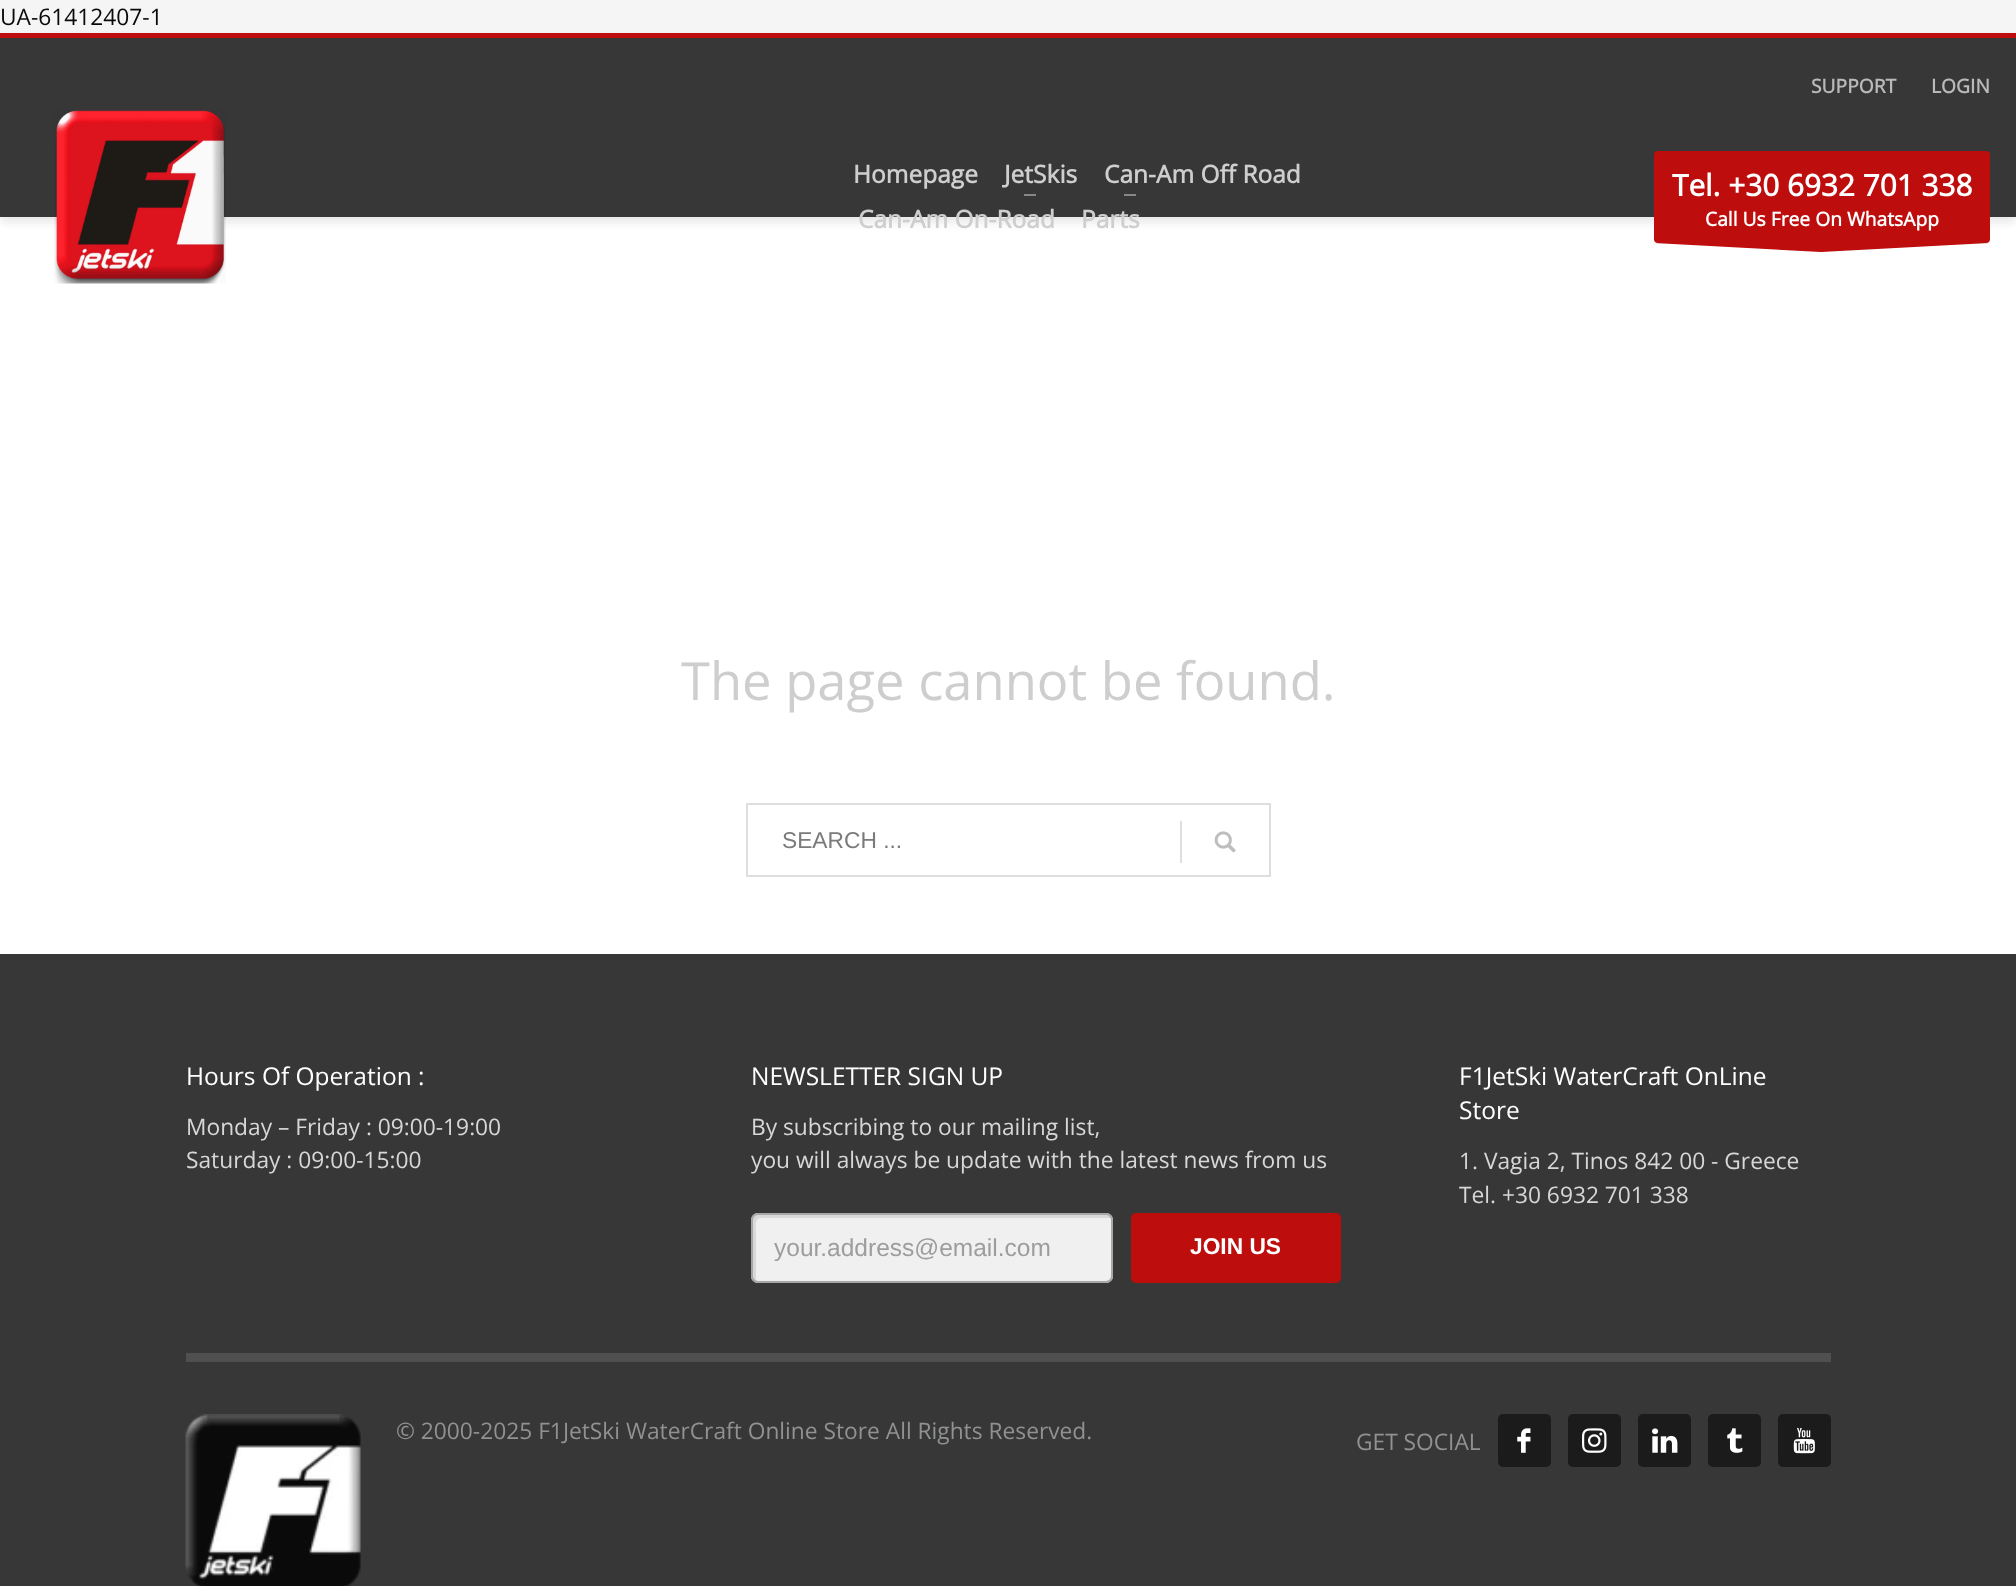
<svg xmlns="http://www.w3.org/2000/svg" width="2016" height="1586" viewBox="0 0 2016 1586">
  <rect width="100%" height="100%" fill="#f5f5f5"/>
  <path d="M0 217h2016v737H0z" fill="#fff"/>
  <path d="M0 39h2016v183H0z" fill="#0a0a0a1a" filter="blur(4.5px)"/>
  <path d="M0 38h2016v179H0z" fill="#373737"/>
  <path d="M0 33h2016v5H0z" fill="#bd0d0d"/>
  <image x="54" y="110" width="172" height="174" href="img/1.png"/>
  <path d="M1024 194h12v2H1024z" fill="#878787"/>
  <path d="M1124 194h12v2H1124z" fill="#878787"/>
  <rect x="1654" y="151" width="336" height="92" rx="4" fill="#bd0d0d"/>
  <path d="M1989 243L1821 252L1654 243Z" fill="#bd0d0d" fill-rule="evenodd"/>
  <path d="M747 804h523v72H747z" fill="none" stroke="#dedede" stroke-width="2"/>
  <path d="M1180 821h2v42H1180z" fill="#dedede"/>
  <image x="1214" y="831" width="22" height="22" href="img/2.png"/>
  <path d="M0 954h2016v632H0z" fill="#373737"/>
  <rect x="751" y="1213" width="362" height="70" rx="7" fill="#f0f0f0"/>
  <path d="M761 1218H1111C1110 1216 1108 1215 1106 1215H758C755 1215 753 1217 753 1220V1276C753 1278 754 1280 756 1281V1232C756 1228 754 1218 761 1218Z" fill="#d9d9d9"/>
  <rect x="752" y="1214" width="360" height="68" rx="6" fill="none" stroke="#a7a7a7" stroke-width="2"/>
  <rect x="1131" y="1213" width="210" height="70" rx="5" fill="#bd0d0d"/>
  <path d="M186 1353h1645v9H186z" fill="#4f4f4f"/>
  <image x="185" y="1414" width="176" height="172" href="img/3.png"/>
  <rect x="1498" y="1414" width="53" height="53" rx="5" fill="#1b1b1b"/>
  <image x="1517" y="1428" width="14" height="25" href="img/4.png"/>
  <rect x="1568" y="1414" width="53" height="53" rx="5" fill="#1b1b1b"/>
  <image x="1582" y="1428" width="25" height="25" href="img/5.png"/>
  <rect x="1638" y="1414" width="53" height="53" rx="5" fill="#1b1b1b"/>
  <image x="1652" y="1428" width="26" height="25" href="img/6.png"/>
  <rect x="1708" y="1414" width="53" height="53" rx="5" fill="#1b1b1b"/>
  <image x="1727" y="1428" width="16" height="25" href="img/7.png"/>
  <rect x="1778" y="1414" width="53" height="53" rx="5" fill="#1b1b1b"/>
  <image x="1793" y="1427" width="22" height="27" href="img/8.png"/>
  <text x="0" y="25" font-family="Open Sans" font-size="22.75" fill="#0a0a0a">UA-61412407-1</text>
  <g font-family="Open Sans" font-size="19.25" font-weight="bold" fill="#b9b9b9">
    <text x="1811" y="93">SUPPORT</text>
    <text x="1931" y="93">LOGIN</text>
  </g>
  <g font-family="Open Sans" font-size="24.5" font-weight="bold" fill="#cecece">
    <text x="853" y="183">Homepage</text>
    <text x="1004" y="183">JetSkis</text>
    <text x="1104" y="183">Can-Am Off Road</text>
    <text x="858" y="228">Can-Am On-Road</text>
    <text x="1081" y="228">Parts</text>
  </g>
  <text x="1672" y="196" font-family="Open Sans" font-size="29.75" font-weight="bold" fill="#fff">Tel. +30 6932 701 338</text>
  <text x="1705" y="226" font-family="Open Sans" font-size="19.25" font-weight="bold" fill="#fff">Call Us Free On WhatsApp</text>
  <text x="681" y="700" font-family="Open Sans" font-size="52.5" fill="#cecece">The page cannot be found.</text>
  <text x="782" y="848" font-family="Liberation Sans" font-size="22.75" fill="#7b7b7b">SEARCH ...</text>
  <text x="186" y="1085" font-family="Open Sans" font-size="24.5" fill="#fff">Hours Of Operation :</text>
  <g font-family="Open Sans" font-size="22.75" fill="#d7d7d7">
    <text x="186" y="1135">Monday – Friday : 09:00-19:00</text>
    <text x="186" y="1168">Saturday : 09:00-15:00</text>
  </g>
  <text x="751" y="1085" font-family="Open Sans" font-size="24.5" fill="#fff">NEWSLETTER SIGN UP</text>
  <g font-family="Open Sans" font-size="22.75" fill="#d7d7d7">
    <text x="751" y="1135">By subscribing to our mailing list,</text>
    <text x="751" y="1168">you will always be update with the latest news from us</text>
  </g>
  <text x="774" y="1256" font-family="Liberation Sans" font-size="24.5" fill="#9d9d9d">your.address@email.com</text>
  <text x="1190" y="1254" font-family="Liberation Sans" font-size="22.75" font-weight="bold" fill="#fff">JOIN US</text>
  <g font-family="Open Sans" font-size="24.5" fill="#fff">
    <text x="1459" y="1085">F1JetSki WaterCraft OnLine</text>
    <text x="1459" y="1119">Store</text>
  </g>
  <g font-family="Open Sans" font-size="22.75" fill="#d7d7d7">
    <text x="1459" y="1169">1. Vagia 2, Tinos 842 00 - Greece</text>
    <text x="1459" y="1203">Tel. +30 6932 701 338</text>
  </g>
  <g font-family="Open Sans" font-size="22.75" fill="#909192">
    <text x="396" y="1439">© 2000-2025 F1JetSki WaterCraft Online Store All Rights Reserved.</text>
    <text x="1356" y="1450">GET SOCIAL</text>
  </g>
</svg>
